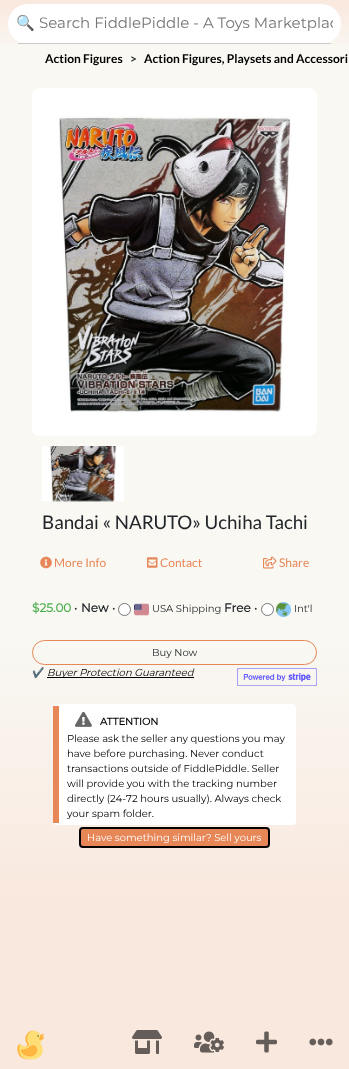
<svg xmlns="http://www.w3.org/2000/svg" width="349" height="1069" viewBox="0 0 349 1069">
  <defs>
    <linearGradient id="g1" gradientUnits="userSpaceOnUse" x1="174" y1="0" x2="175" y2="1069"><stop offset="0.6" stop-color="#f9f8f3"/><stop offset="0.85" stop-color="#f9e8de"/></linearGradient>
    <linearGradient id="g2" gradientUnits="userSpaceOnUse" x1="174" y1="0" x2="175" y2="1069"><stop offset="0" stop-color="#f9e8de"/><stop offset="0.05" stop-color="#f9f8f3"/></linearGradient>
    <clipPath id="clip1"><path d="M16 13h317v19H16z"/></clipPath>
  </defs>
  <rect width="100%" height="100%" fill="#fff"/>
  <path d="M0 73h349v996H0z" fill="url(#g1)"/>
  <path d="M0 0h349v45H0z" fill="url(#g2)"/>
  <rect x="8" y="4" width="333" height="40" rx="20" fill="#fff"/>
  <path d="M18 43h313v1H18z" fill="#ccc"/>
  <path d="M0 45h349v28H0z" fill="#f9f8f3"/>
  <rect x="32" y="88" width="285" height="348" rx="8" fill="#fff"/>
  <image x="59" y="116" width="233" height="297" href="img/1.png"/>
  <path d="M42 446h82v55H42z" fill="#fff"/>
  <image x="50" y="446" width="67" height="56" href="img/2.png"/>
  <image x="40" y="556" width="12" height="13" href="img/3.png"/>
  <image x="147" y="557" width="11" height="11" href="img/4.png"/>
  <image x="263" y="556" width="14" height="13" href="img/5.png"/>
  <circle cx="124.5" cy="609.5" r="6" fill="#fff" stroke="#767676"/>
  <image x="134" y="603" width="15" height="13" href="img/6.png"/>
  <circle cx="267.5" cy="609.5" r="6" fill="#fff" stroke="#767676"/>
  <image x="276" y="602" width="15" height="15" href="img/7.png"/>
  <rect x="32.5" y="640.5" width="284" height="24" rx="12" fill="none" stroke="#e78758"/>
  <path d="M47 677h147v1H47z" fill="#000"/>
  <image x="237" y="668" width="80" height="18" href="img/8.png"/>
  <rect x="53" y="704" width="243" height="121" rx="4" fill="#fff"/>
  <path d="M53 706h6v117H53z" fill="#e78758"/>
  <image x="75" y="711" width="17" height="16" href="img/9.png"/>
  <rect x="80" y="828" width="189" height="19" rx="3" fill="#e78758" stroke="#000" stroke-width="2"/>
  <image x="17" y="1030" width="28" height="30" href="img/10.png"/>
  <image x="132" y="1030" width="30" height="24" href="img/11.png"/>
  <image x="194" y="1031" width="30" height="22" href="img/12.png"/>
  <image x="256" y="1031" width="21" height="22" href="img/13.png"/>
  <image x="309" y="1038" width="24" height="8" href="img/14.png"/>
  <text x="16" y="28" font-family="Noto Color Emoji" font-size="15" fill="#757575">🔍</text>
  <g clip-path="url(#clip1)">
    <text x="39" y="28" font-family="Montserrat" font-size="15" font-weight="100" fill="#757575">Search FiddlePiddle - A Toys Marketplac</text>
  </g>
  <text x="45" y="63" font-family="Lato" font-size="12" font-weight="bold" fill="#000">Action Figures</text>
  <text x="130" y="63" font-family="Lato" font-size="12" font-weight="bold" fill="#212529">&gt;</text>
  <text x="144" y="63" font-family="Lato" font-size="12" font-weight="bold" fill="#000">Action Figures, Playsets and Accessori</text>
  <text x="42" y="529" font-family="Lato" font-size="18.75" fill="#212529">Bandai « NARUTO» Uchiha Tachi</text>
  <g font-family="Lato" font-size="12" fill="#e78758">
    <text x="54" y="567">More Info</text>
    <text x="160" y="567">Contact</text>
    <text x="279" y="567">Share</text>
  </g>
  <text x="32" y="612" font-family="Montserrat" font-size="12" font-weight="bold" fill="#4caf50">$25.00</text>
  <text x="74" y="612" font-family="Montserrat" font-size="12" font-weight="100" fill="#212529">•</text>
  <text x="81" y="612" font-family="Montserrat" font-size="12" font-weight="bold" fill="#212529">New</text>
  <text x="112" y="612" font-family="Montserrat" font-size="12" font-weight="100" fill="#212529">•</text>
  <text x="152" y="612" font-family="Montserrat" font-size="10" font-weight="100" fill="#212529">USA Shipping</text>
  <text x="224" y="612" font-family="Montserrat" font-size="12" font-weight="bold" fill="#212529">Free</text>
  <text x="254" y="612" font-family="Montserrat" font-size="12" font-weight="100" fill="#212529">•</text>
  <g font-family="Montserrat" font-size="10" font-weight="100" fill="#212529">
    <text x="294" y="612">Int'l</text>
    <text x="152" y="656">Buy Now</text>
  </g>
  <text x="32" y="676" font-family="Noto Color Emoji" font-size="10" fill="#000">✔️</text>
  <text x="47" y="676" font-family="Montserrat" font-size="10" font-weight="100" font-style="italic" fill="#000">Buyer Protection Guaranteed</text>
  <text x="100" y="725" font-family="Montserrat" font-size="10" font-weight="bold" fill="#000">ATTENTION</text>
  <g font-family="Montserrat" font-size="10" font-weight="100" fill="#000">
    <text x="67" y="742">Please ask the seller any questions you may</text>
    <text x="67" y="757">have before purchasing. Never conduct</text>
    <text x="67" y="772">transactions outside of FiddlePiddle. Seller</text>
    <text x="67" y="787">will provide you with the tracking number</text>
    <text x="67" y="802">directly (24-72 hours usually). Always check</text>
    <text x="67" y="817">your spam folder.</text>
  </g>
  <text x="87" y="841" font-family="Montserrat" font-size="10" font-weight="100" fill="#fff">Have something similar? Sell yours</text>
</svg>
